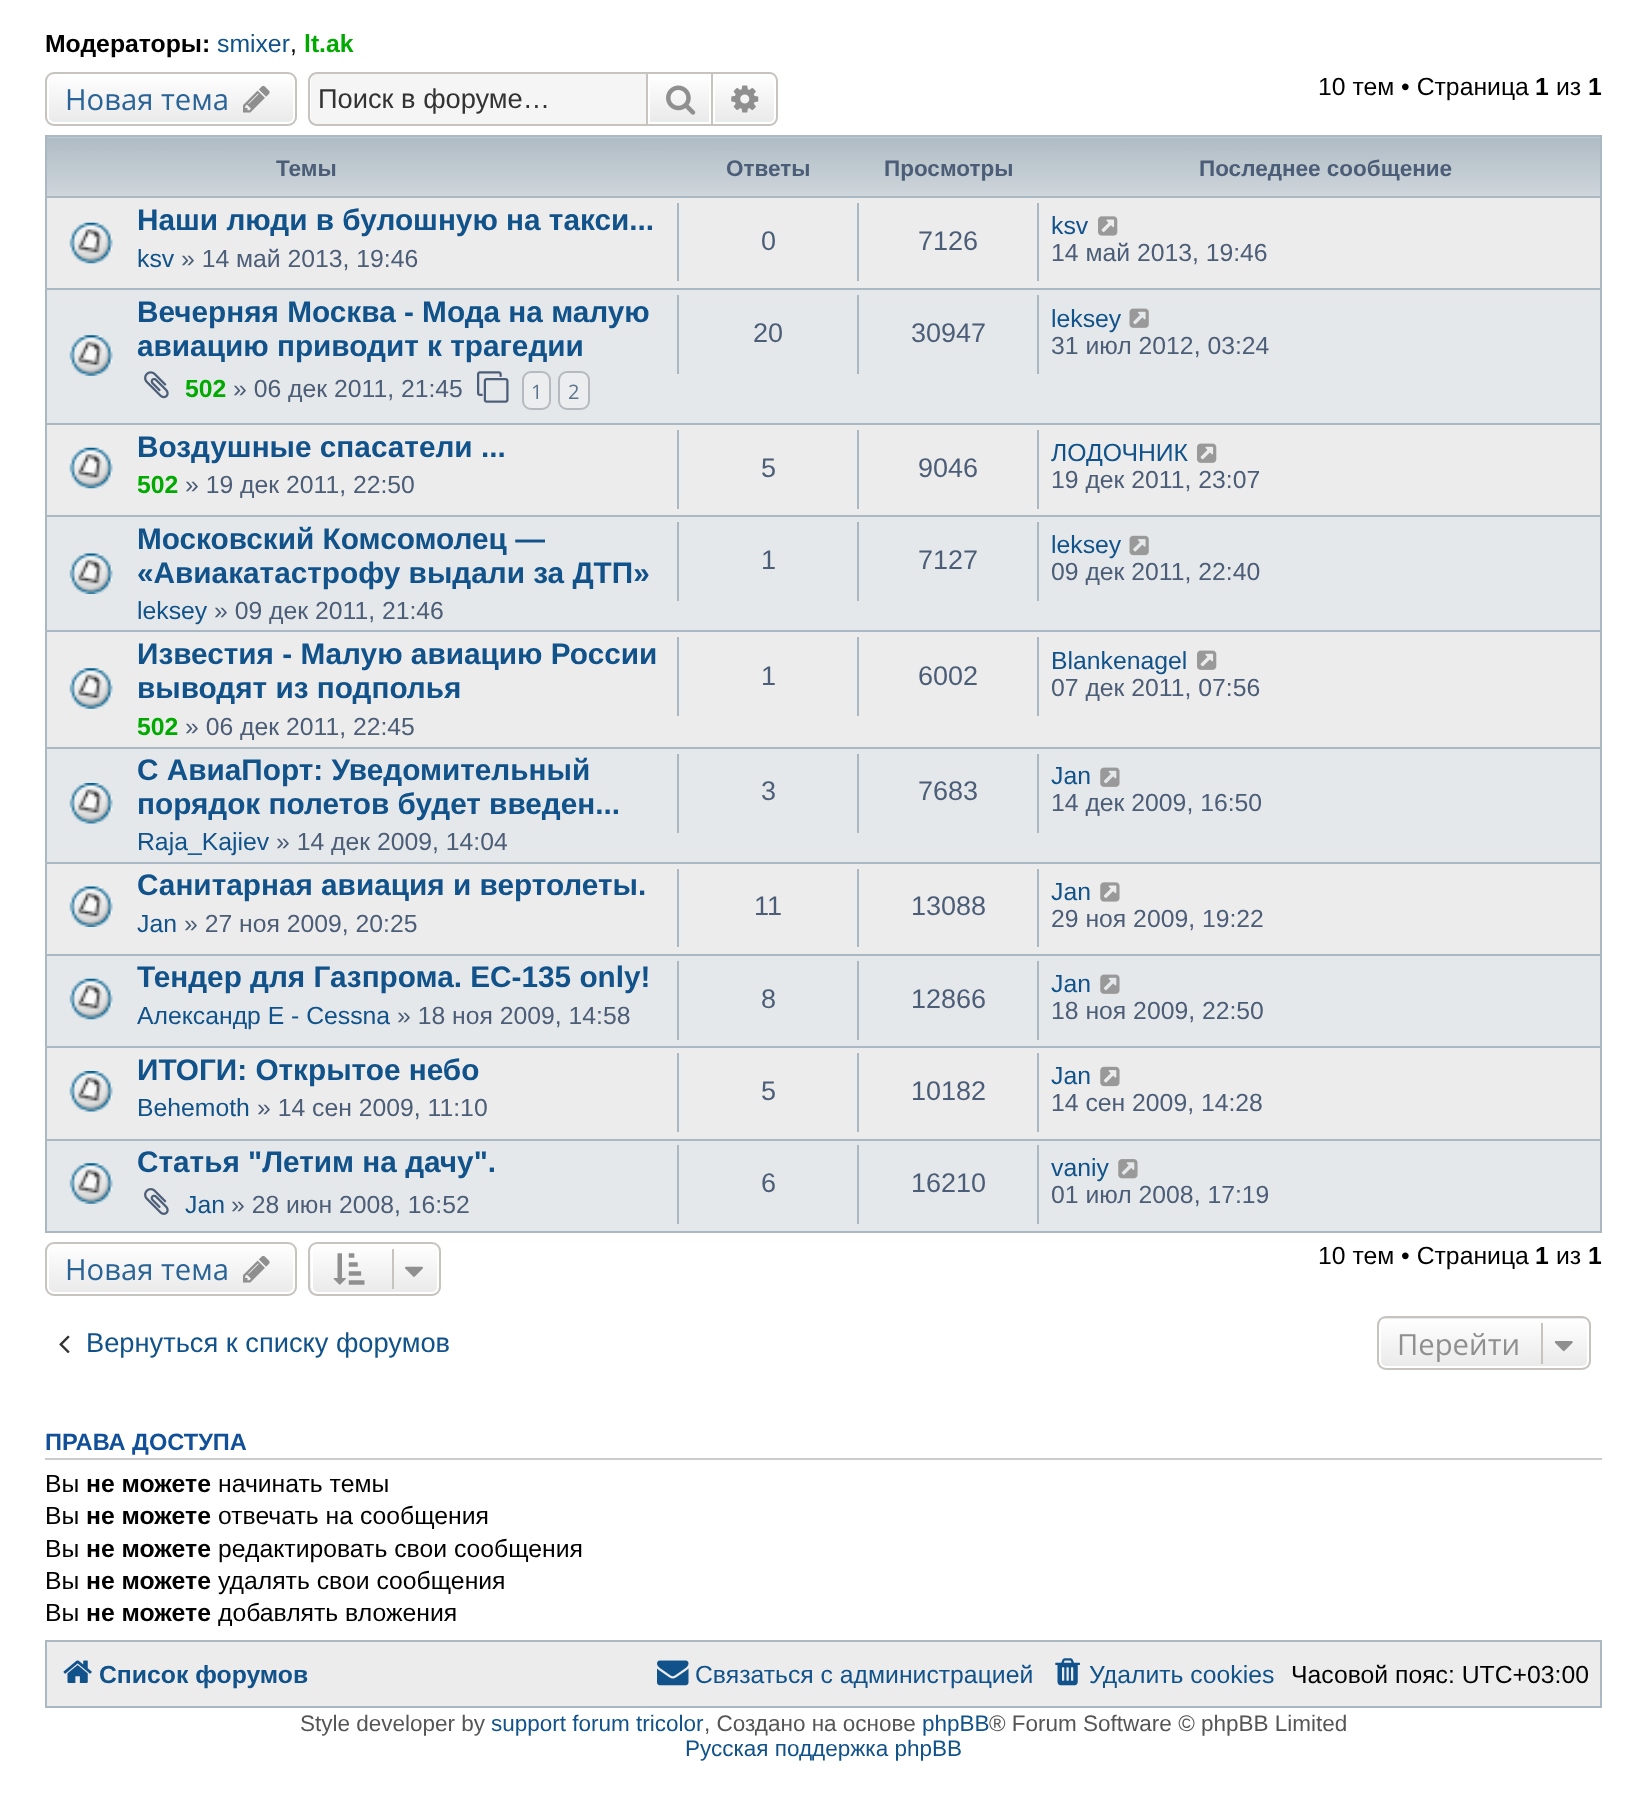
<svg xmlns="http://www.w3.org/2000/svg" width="1647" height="1814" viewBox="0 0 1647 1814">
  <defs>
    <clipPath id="clip1"><rect x="45" y="72" width="252" height="54" rx="9"/></clipPath>
    <linearGradient id="g1" gradientUnits="userSpaceOnUse" x1="171" y1="74" x2="171" y2="124"><stop offset="0" stop-color="#fff"/><stop offset="1" stop-color="#e9e9e9"/></linearGradient>
    <linearGradient id="g2" gradientUnits="userSpaceOnUse" x1="680" y1="74" x2="680" y2="124"><stop offset="0" stop-color="#fff"/><stop offset="1" stop-color="#e9e9e9"/></linearGradient>
    <linearGradient id="g3" gradientUnits="userSpaceOnUse" x1="745" y1="74" x2="745" y2="124"><stop offset="0" stop-color="#fff"/><stop offset="1" stop-color="#e9e9e9"/></linearGradient>
    <clipPath id="clip2"><rect x="45" y="1242" width="252" height="54" rx="9"/></clipPath>
    <linearGradient id="g4" gradientUnits="userSpaceOnUse" x1="171" y1="1244" x2="171" y2="1294"><stop offset="0" stop-color="#fff"/><stop offset="1" stop-color="#e9e9e9"/></linearGradient>
    <clipPath id="clip3"><rect x="308" y="1242" width="133" height="54" rx="9"/></clipPath>
    <linearGradient id="g5" gradientUnits="userSpaceOnUse" x1="375" y1="1244" x2="375" y2="1294"><stop offset="0" stop-color="#fff"/><stop offset="1" stop-color="#e9e9e9"/></linearGradient>
    <clipPath id="clip4"><rect x="1377" y="1316" width="214" height="54" rx="9"/></clipPath>
    <linearGradient id="g6" gradientUnits="userSpaceOnUse" x1="1484" y1="1269" x2="1484" y2="1319"><stop offset="0" stop-color="#fff"/><stop offset="1" stop-color="#e9e9e9"/></linearGradient>
    <linearGradient id="g7" gradientUnits="userSpaceOnUse" x1="1484" y1="1319" x2="1484" y2="1368"><stop offset="0" stop-color="#fff"/><stop offset="1" stop-color="#e9e9e9"/></linearGradient>
  </defs>
  <rect width="100%" height="100%" fill="#fff"/>
  <g clip-path="url(#clip1)">
    <path d="M45 74h252v50H45z" fill="url(#g1)"/>
  </g>
  <rect x="48" y="75" width="246" height="48" rx="6" fill="none" stroke="#fff" stroke-width="2"/>
  <rect x="46" y="73" width="250" height="52" rx="8" fill="none" stroke="#c7c3bf" stroke-width="2"/>
  <image x="243" y="85" width="27" height="28" href="img/1.png"/>
  <path d="M318 74H646V124H318C314 124 311 121 311 117V81C311 77 314 74 318 74Z" fill="#f5f5f5"/>
  <path d="M317 72H646V126H317C312 126 308 122 308 117V81C308 76 312 72 317 72ZM317 74H646V124H317C314 124 310 121 310 117V81C310 77 314 74 317 74Z" fill="#c7c3bf" fill-rule="evenodd"/>
  <path d="M650 80h59v42H650z" fill="url(#g2)"/>
  <path d="M647 73h65v52H647z" fill="none" stroke="#c7c3bf" stroke-width="2"/>
  <image x="666" y="85" width="30" height="30" href="img/2.png"/>
  <path d="M714 75H769C772.5 75 775 77.5 775 81V117C775 120.5 772.5 123 769 123H714Z" fill="url(#g3)" stroke="#fff" stroke-width="2"/>
  <path d="M713 72H770C774 72 778 76 778 81V117C778 122 774 126 770 126H713ZM713 74H770C773 74 776 77 776 81V117C776 121 773 124 770 124H713Z" fill="#c7c3bf" fill-rule="evenodd"/>
  <image x="731" y="85" width="28" height="28" href="img/3.png"/>
  <path d="M47 137h1553v1002H47z" fill="#ececec"/>
  <image x="47" y="137" width="1553" height="59" href="img/4.png"/>
  <path d="M46 136h1555v1096H46z" fill="none" stroke="#a9b8c2" stroke-width="2"/>
  <path d="M47 196h1553v2H47z" fill="#a9b8c2"/>
  <image x="69" y="222" width="44" height="42" href="img/5.png"/>
  <path d="M677 203h2v78H677z" fill="#a9b8c2"/>
  <path d="M857 203h2v78H857z" fill="#a9b8c2"/>
  <path d="M1037 203h2v78H1037z" fill="#a9b8c2"/>
  <image x="1098" y="216" width="20" height="20" href="img/6.png"/>
  <path d="M47 290h1553v133H47z" fill="#e5e8ea"/>
  <path d="M47 288h1553v2H47z" fill="#a9b8c2"/>
  <image x="69" y="335" width="44" height="41" href="img/7.png"/>
  <image x="144" y="371" width="25" height="28" href="img/8.png"/>
  <image x="477" y="371" width="32" height="32" href="img/9.png"/>
  <rect x="523" y="372" width="27" height="37" rx="8" fill="#ecedee" stroke="#b4bac0" stroke-width="2"/>
  <rect x="559" y="372" width="30" height="37" rx="8" fill="#ecedee" stroke="#b4bac0" stroke-width="2"/>
  <path d="M677 295h2v79H677z" fill="#a9b8c2"/>
  <path d="M857 295h2v79H857z" fill="#a9b8c2"/>
  <path d="M1037 295h2v79H1037z" fill="#a9b8c2"/>
  <image x="1129" y="308" width="20" height="20" href="img/10.png"/>
  <path d="M47 423h1553v2H47z" fill="#a9b8c2"/>
  <image x="69" y="447" width="44" height="42" href="img/11.png"/>
  <path d="M677 430h2v79H677z" fill="#a9b8c2"/>
  <path d="M857 430h2v79H857z" fill="#a9b8c2"/>
  <path d="M1037 430h2v79H1037z" fill="#a9b8c2"/>
  <image x="1197" y="443" width="20" height="20" href="img/12.png"/>
  <path d="M47 517h1553v113H47z" fill="#e5e8ea"/>
  <path d="M47 515h1553v2H47z" fill="#a9b8c2"/>
  <image x="69" y="553" width="44" height="41" href="img/13.png"/>
  <path d="M677 522h2v79H677z" fill="#a9b8c2"/>
  <path d="M857 522h2v79H857z" fill="#a9b8c2"/>
  <path d="M1037 522h2v79H1037z" fill="#a9b8c2"/>
  <image x="1129" y="535" width="20" height="21" href="img/14.png"/>
  <path d="M47 630h1553v2H47z" fill="#a9b8c2"/>
  <image x="69" y="668" width="44" height="41" href="img/15.png"/>
  <path d="M677 637h2v79H677z" fill="#a9b8c2"/>
  <path d="M857 637h2v79H857z" fill="#a9b8c2"/>
  <path d="M1037 637h2v79H1037z" fill="#a9b8c2"/>
  <image x="1197" y="650" width="20" height="20" href="img/12.png"/>
  <path d="M47 749h1553v113H47z" fill="#e5e8ea"/>
  <path d="M47 747h1553v2H47z" fill="#a9b8c2"/>
  <image x="69" y="783" width="44" height="41" href="img/16.png"/>
  <path d="M677 754h2v79H677z" fill="#a9b8c2"/>
  <path d="M857 754h2v79H857z" fill="#a9b8c2"/>
  <path d="M1037 754h2v79H1037z" fill="#a9b8c2"/>
  <image x="1100" y="767" width="20" height="20" href="img/17.png"/>
  <path d="M47 862h1553v2H47z" fill="#a9b8c2"/>
  <image x="69" y="886" width="44" height="41" href="img/18.png"/>
  <path d="M677 869h2v78H677z" fill="#a9b8c2"/>
  <path d="M857 869h2v78H857z" fill="#a9b8c2"/>
  <path d="M1037 869h2v78H1037z" fill="#a9b8c2"/>
  <image x="1100" y="882" width="20" height="20" href="img/19.png"/>
  <path d="M47 956h1553v90H47z" fill="#e5e8ea"/>
  <path d="M47 954h1553v2H47z" fill="#a9b8c2"/>
  <image x="69" y="978" width="44" height="42" href="img/20.png"/>
  <path d="M677 961h2v79H677z" fill="#a9b8c2"/>
  <path d="M857 961h2v79H857z" fill="#a9b8c2"/>
  <path d="M1037 961h2v79H1037z" fill="#a9b8c2"/>
  <image x="1100" y="974" width="20" height="20" href="img/17.png"/>
  <path d="M47 1046h1553v2H47z" fill="#a9b8c2"/>
  <image x="69" y="1071" width="44" height="41" href="img/21.png"/>
  <path d="M677 1053h2v79H677z" fill="#a9b8c2"/>
  <path d="M857 1053h2v79H857z" fill="#a9b8c2"/>
  <path d="M1037 1053h2v79H1037z" fill="#a9b8c2"/>
  <image x="1100" y="1066" width="20" height="21" href="img/22.png"/>
  <path d="M47 1141h1553v90H47z" fill="#e5e8ea"/>
  <path d="M47 1139h1553v2H47z" fill="#a9b8c2"/>
  <image x="69" y="1163" width="44" height="41" href="img/7.png"/>
  <image x="144" y="1188" width="25" height="27" href="img/23.png"/>
  <path d="M677 1145h2v79H677z" fill="#a9b8c2"/>
  <path d="M857 1145h2v79H857z" fill="#a9b8c2"/>
  <path d="M1037 1145h2v79H1037z" fill="#a9b8c2"/>
  <image x="1118" y="1159" width="20" height="20" href="img/24.png"/>
  <g clip-path="url(#clip2)">
    <path d="M45 1244h252v50H45z" fill="url(#g4)"/>
  </g>
  <rect x="48" y="1245" width="246" height="48" rx="6" fill="none" stroke="#fff" stroke-width="2"/>
  <rect x="46" y="1243" width="250" height="52" rx="8" fill="none" stroke="#c7c3bf" stroke-width="2"/>
  <image x="243" y="1255" width="27" height="28" href="img/1.png"/>
  <g clip-path="url(#clip3)">
    <path d="M308 1244h133v50H308z" fill="url(#g5)"/>
  </g>
  <rect x="312" y="1245" width="126" height="48" rx="6" fill="none" stroke="#fff" stroke-width="2"/>
  <rect x="309" y="1243" width="131" height="52" rx="8" fill="none" stroke="#c7c3bf" stroke-width="2"/>
  <image x="333" y="1253" width="32" height="32" href="img/25.png"/>
  <path d="M392 1249h2v40H392z" fill="#c7c3bf"/>
  <image x="405" y="1266" width="18" height="11" href="img/26.png"/>
  <image x="59" y="1335" width="11" height="19" href="img/27.png"/>
  <g clip-path="url(#clip4)">
    <path d="M1377 1316h214v3H1377z" fill="url(#g6)"/>
    <path d="M1377 1319h214v49H1377z" fill="url(#g7)"/>
  </g>
  <rect x="1380" y="1320" width="208" height="47" rx="6" fill="none" stroke="#fff" stroke-width="2"/>
  <rect x="1378" y="1317" width="212" height="52" rx="8" fill="none" stroke="#c7c3bf" stroke-width="2"/>
  <path d="M1541 1323h2v41H1541z" fill="#c7c3bf"/>
  <image x="1554" y="1341" width="19" height="11" href="img/28.png"/>
  <path d="M45 1458h1557v2H45z" fill="#ccc"/>
  <path d="M46 1641h1555v66H46z" fill="#ececec" stroke="#a9b8c2" stroke-width="2"/>
  <image x="63" y="1660" width="29" height="23" href="img/29.png"/>
  <image x="657" y="1660" width="32" height="26" href="img/30.png"/>
  <image x="1055" y="1658" width="25" height="28" href="img/31.png"/>
  <text x="45" y="52" font-family="Liberation Sans" font-size="24.75" font-weight="bold" fill="#000">Модераторы:</text>
  <text x="217" y="52" font-family="Liberation Sans" font-size="24.75" fill="#105289">smixer</text>
  <text x="290" y="52" font-family="Liberation Sans" font-size="24.75" fill="#000">,</text>
  <text x="304" y="52" font-family="Liberation Sans" font-size="24.75" font-weight="bold" fill="#0a0">lt.ak</text>
  <text x="65" y="110" font-family="Open Sans" font-size="29.25" fill="#2a6496">Новая тема</text>
  <text x="318" y="108" font-family="Liberation Sans" font-size="27.25" fill="#333">Поиск в форуме…</text>
  <text x="1318" y="95" font-family="Liberation Sans" font-size="24.75" fill="#000">10 тем • Страница</text>
  <text x="1535" y="95" font-family="Liberation Sans" font-size="24.75" font-weight="bold" fill="#000">1</text>
  <text x="1556" y="95" font-family="Liberation Sans" font-size="24.75" fill="#000">из</text>
  <text x="1588" y="95" font-family="Liberation Sans" font-size="24.75" font-weight="bold" fill="#000">1</text>
  <g font-family="Liberation Sans" font-size="22.5" font-weight="bold" fill="#4c5d77">
    <text x="276" y="176">Темы</text>
    <text x="726" y="176">Ответы</text>
    <text x="884" y="176">Просмотры</text>
    <text x="1199" y="176">Последнее сообщение</text>
  </g>
  <text x="137" y="230" font-family="Liberation Sans" font-size="29.75" font-weight="bold" fill="#105289">Наши люди в булошную на такси...</text>
  <text x="137" y="267" font-family="Liberation Sans" font-size="24.75" fill="#105289">ksv</text>
  <text x="181" y="267" font-family="Liberation Sans" font-size="24.75" fill="#4c5d77">» 14 май 2013, 19:46</text>
  <g font-family="Liberation Sans" font-size="27" fill="#4c5d77">
    <text x="761" y="250">0</text>
    <text x="918" y="250">7126</text>
  </g>
  <text x="1051" y="234" font-family="Liberation Sans" font-size="24.75" fill="#105289">ksv</text>
  <text x="1051" y="261" font-family="Liberation Sans" font-size="24.75" fill="#4c5d77">14 май 2013, 19:46</text>
  <g font-family="Liberation Sans" font-size="29.75" font-weight="bold" fill="#105289">
    <text x="137" y="322">Вечерняя Москва - Мода на малую</text>
    <text x="137" y="356">авиацию приводит к трагедии</text>
  </g>
  <text x="185" y="397" font-family="Liberation Sans" font-size="24.75" font-weight="bold" fill="#0a0">502</text>
  <text x="233" y="397" font-family="Liberation Sans" font-size="24.75" fill="#4c5d77">» 06 дек 2011, 21:45</text>
  <g font-family="Open Sans" font-size="20" fill="#5c758c">
    <text x="531" y="399">1</text>
    <text x="568" y="399">2</text>
  </g>
  <g font-family="Liberation Sans" font-size="27" fill="#4c5d77">
    <text x="753" y="342">20</text>
    <text x="911" y="342">30947</text>
  </g>
  <text x="1051" y="327" font-family="Liberation Sans" font-size="24.75" fill="#105289">leksey</text>
  <text x="1051" y="354" font-family="Liberation Sans" font-size="24.75" fill="#4c5d77">31 июл 2012, 03:24</text>
  <text x="137" y="457" font-family="Liberation Sans" font-size="29.75" font-weight="bold" fill="#105289">Воздушные спасатели ...</text>
  <text x="137" y="493" font-family="Liberation Sans" font-size="24.75" font-weight="bold" fill="#0a0">502</text>
  <text x="185" y="493" font-family="Liberation Sans" font-size="24.75" fill="#4c5d77">» 19 дек 2011, 22:50</text>
  <g font-family="Liberation Sans" font-size="27" fill="#4c5d77">
    <text x="761" y="477">5</text>
    <text x="918" y="477">9046</text>
  </g>
  <text x="1051" y="461" font-family="Liberation Sans" font-size="24.75" fill="#105289">ЛОДОЧНИК</text>
  <text x="1051" y="488" font-family="Liberation Sans" font-size="24.75" fill="#4c5d77">19 дек 2011, 23:07</text>
  <g font-family="Liberation Sans" font-size="29.75" font-weight="bold" fill="#105289">
    <text x="137" y="549">Московский Комсомолец —</text>
    <text x="137" y="583">«Авиакатастрофу выдали за ДТП»</text>
  </g>
  <text x="137" y="619" font-family="Liberation Sans" font-size="24.75" fill="#105289">leksey</text>
  <text x="214" y="619" font-family="Liberation Sans" font-size="24.75" fill="#4c5d77">» 09 дек 2011, 21:46</text>
  <g font-family="Liberation Sans" font-size="27" fill="#4c5d77">
    <text x="761" y="569">1</text>
    <text x="918" y="569">7127</text>
  </g>
  <text x="1051" y="553" font-family="Liberation Sans" font-size="24.75" fill="#105289">leksey</text>
  <text x="1051" y="580" font-family="Liberation Sans" font-size="24.75" fill="#4c5d77">09 дек 2011, 22:40</text>
  <g font-family="Liberation Sans" font-size="29.75" font-weight="bold" fill="#105289">
    <text x="137" y="664">Известия - Малую авиацию России</text>
    <text x="137" y="698">выводят из подполья</text>
  </g>
  <text x="137" y="735" font-family="Liberation Sans" font-size="24.75" font-weight="bold" fill="#0a0">502</text>
  <text x="185" y="735" font-family="Liberation Sans" font-size="24.75" fill="#4c5d77">» 06 дек 2011, 22:45</text>
  <g font-family="Liberation Sans" font-size="27" fill="#4c5d77">
    <text x="761" y="685">1</text>
    <text x="918" y="685">6002</text>
  </g>
  <text x="1051" y="669" font-family="Liberation Sans" font-size="24.75" fill="#105289">Blankenagel</text>
  <text x="1051" y="696" font-family="Liberation Sans" font-size="24.75" fill="#4c5d77">07 дек 2011, 07:56</text>
  <g font-family="Liberation Sans" font-size="29.75" font-weight="bold" fill="#105289">
    <text x="137" y="780">С АвиаПорт: Уведомительный</text>
    <text x="137" y="814">порядок полетов будет введен...</text>
  </g>
  <text x="137" y="850" font-family="Liberation Sans" font-size="24.75" fill="#105289">Raja_Kajiev</text>
  <text x="276" y="850" font-family="Liberation Sans" font-size="24.75" fill="#4c5d77">» 14 дек 2009, 14:04</text>
  <g font-family="Liberation Sans" font-size="27" fill="#4c5d77">
    <text x="761" y="800">3</text>
    <text x="918" y="800">7683</text>
  </g>
  <text x="1051" y="784" font-family="Liberation Sans" font-size="24.75" fill="#105289">Jan</text>
  <text x="1051" y="811" font-family="Liberation Sans" font-size="24.75" fill="#4c5d77">14 дек 2009, 16:50</text>
  <text x="137" y="895" font-family="Liberation Sans" font-size="29.75" font-weight="bold" fill="#105289">Санитарная авиация и вертолеты.</text>
  <text x="137" y="932" font-family="Liberation Sans" font-size="24.75" fill="#105289">Jan</text>
  <text x="184" y="932" font-family="Liberation Sans" font-size="24.75" fill="#4c5d77">» 27 ноя 2009, 20:25</text>
  <g font-family="Liberation Sans" font-size="27" fill="#4c5d77">
    <text x="754" y="915">11</text>
    <text x="911" y="915">13088</text>
  </g>
  <text x="1051" y="900" font-family="Liberation Sans" font-size="24.75" fill="#105289">Jan</text>
  <text x="1051" y="927" font-family="Liberation Sans" font-size="24.75" fill="#4c5d77">29 ноя 2009, 19:22</text>
  <text x="137" y="987" font-family="Liberation Sans" font-size="29.75" font-weight="bold" fill="#105289">Тендер для Газпрома. EC-135 only!</text>
  <text x="137" y="1024" font-family="Liberation Sans" font-size="24.75" fill="#105289">Александр E - Cessna</text>
  <text x="397" y="1024" font-family="Liberation Sans" font-size="24.75" fill="#4c5d77">» 18 ноя 2009, 14:58</text>
  <g font-family="Liberation Sans" font-size="27" fill="#4c5d77">
    <text x="761" y="1008">8</text>
    <text x="911" y="1008">12866</text>
  </g>
  <text x="1051" y="992" font-family="Liberation Sans" font-size="24.75" fill="#105289">Jan</text>
  <text x="1051" y="1019" font-family="Liberation Sans" font-size="24.75" fill="#4c5d77">18 ноя 2009, 22:50</text>
  <text x="137" y="1080" font-family="Liberation Sans" font-size="29.75" font-weight="bold" fill="#105289">ИТОГИ: Открытое небо</text>
  <text x="137" y="1116" font-family="Liberation Sans" font-size="24.75" fill="#105289">Behemoth</text>
  <text x="257" y="1116" font-family="Liberation Sans" font-size="24.75" fill="#4c5d77">» 14 сен 2009, 11:10</text>
  <g font-family="Liberation Sans" font-size="27" fill="#4c5d77">
    <text x="761" y="1100">5</text>
    <text x="911" y="1100">10182</text>
  </g>
  <text x="1051" y="1084" font-family="Liberation Sans" font-size="24.75" fill="#105289">Jan</text>
  <text x="1051" y="1111" font-family="Liberation Sans" font-size="24.75" fill="#4c5d77">14 сен 2009, 14:28</text>
  <text x="137" y="1172" font-family="Liberation Sans" font-size="29.75" font-weight="bold" fill="#105289">Статья "Летим на дачу".</text>
  <text x="185" y="1213" font-family="Liberation Sans" font-size="24.75" fill="#105289">Jan</text>
  <text x="231" y="1213" font-family="Liberation Sans" font-size="24.75" fill="#4c5d77">» 28 июн 2008, 16:52</text>
  <g font-family="Liberation Sans" font-size="27" fill="#4c5d77">
    <text x="761" y="1192">6</text>
    <text x="911" y="1192">16210</text>
  </g>
  <text x="1051" y="1176" font-family="Liberation Sans" font-size="24.75" fill="#105289">vaniy</text>
  <text x="1051" y="1203" font-family="Liberation Sans" font-size="24.75" fill="#4c5d77">01 июл 2008, 17:19</text>
  <text x="65" y="1280" font-family="Open Sans" font-size="29.25" fill="#2a6496">Новая тема</text>
  <text x="1318" y="1264" font-family="Liberation Sans" font-size="24.75" fill="#000">10 тем • Страница</text>
  <text x="1535" y="1264" font-family="Liberation Sans" font-size="24.75" font-weight="bold" fill="#000">1</text>
  <text x="1556" y="1264" font-family="Liberation Sans" font-size="24.75" fill="#000">из</text>
  <text x="1588" y="1264" font-family="Liberation Sans" font-size="24.75" font-weight="bold" fill="#000">1</text>
  <text x="86" y="1352" font-family="Liberation Sans" font-size="27.25" fill="#105289">Вернуться к списку форумов</text>
  <text x="1397" y="1355" font-family="Open Sans" font-size="29.25" fill="#8f8f8f">Перейти</text>
  <text x="45" y="1450" font-family="Liberation Sans" font-size="23.6" font-weight="bold" fill="#115098">ПРАВА ДОСТУПА</text>
  <text x="45" y="1492" font-family="Liberation Sans" font-size="24.75" fill="#000">Вы</text>
  <text x="86" y="1492" font-family="Liberation Sans" font-size="24.75" font-weight="bold" fill="#000">не можете</text>
  <g font-family="Liberation Sans" font-size="24.75" fill="#000">
    <text x="218" y="1492">начинать темы</text>
    <text x="45" y="1524">Вы</text>
  </g>
  <text x="86" y="1524" font-family="Liberation Sans" font-size="24.75" font-weight="bold" fill="#000">не можете</text>
  <g font-family="Liberation Sans" font-size="24.75" fill="#000">
    <text x="218" y="1524">отвечать на сообщения</text>
    <text x="45" y="1557">Вы</text>
  </g>
  <text x="86" y="1557" font-family="Liberation Sans" font-size="24.75" font-weight="bold" fill="#000">не можете</text>
  <g font-family="Liberation Sans" font-size="24.75" fill="#000">
    <text x="218" y="1557">редактировать свои сообщения</text>
    <text x="45" y="1589">Вы</text>
  </g>
  <text x="86" y="1589" font-family="Liberation Sans" font-size="24.75" font-weight="bold" fill="#000">не можете</text>
  <g font-family="Liberation Sans" font-size="24.75" fill="#000">
    <text x="218" y="1589">удалять свои сообщения</text>
    <text x="45" y="1621">Вы</text>
  </g>
  <text x="86" y="1621" font-family="Liberation Sans" font-size="24.75" font-weight="bold" fill="#000">не можете</text>
  <text x="218" y="1621" font-family="Liberation Sans" font-size="24.75" fill="#000">добавлять вложения</text>
  <text x="99" y="1683" font-family="Liberation Sans" font-size="24.75" font-weight="bold" fill="#105289">Список форумов</text>
  <g font-family="Liberation Sans" font-size="24.75" fill="#105289">
    <text x="695" y="1683">Связаться с администрацией</text>
    <text x="1089" y="1683">Удалить cookies</text>
  </g>
  <text x="1291" y="1683" font-family="Liberation Sans" font-size="24.75" fill="#000">Часовой пояс: UTC+03:00</text>
  <text x="300" y="1731" font-family="Liberation Sans" font-size="22.5" fill="#555">Style developer by</text>
  <text x="491" y="1731" font-family="Liberation Sans" font-size="22.5" fill="#105289">support forum tricolor</text>
  <text x="704" y="1731" font-family="Liberation Sans" font-size="22.5" fill="#555">, Создано на основе</text>
  <text x="922" y="1731" font-family="Liberation Sans" font-size="22.5" fill="#105289">phpBB</text>
  <text x="989" y="1731" font-family="Liberation Sans" font-size="22.5" fill="#555">® Forum Software © phpBB Limited</text>
  <text x="685" y="1756" font-family="Liberation Sans" font-size="22.5" fill="#105289">Русская поддержка phpBB</text>
</svg>
